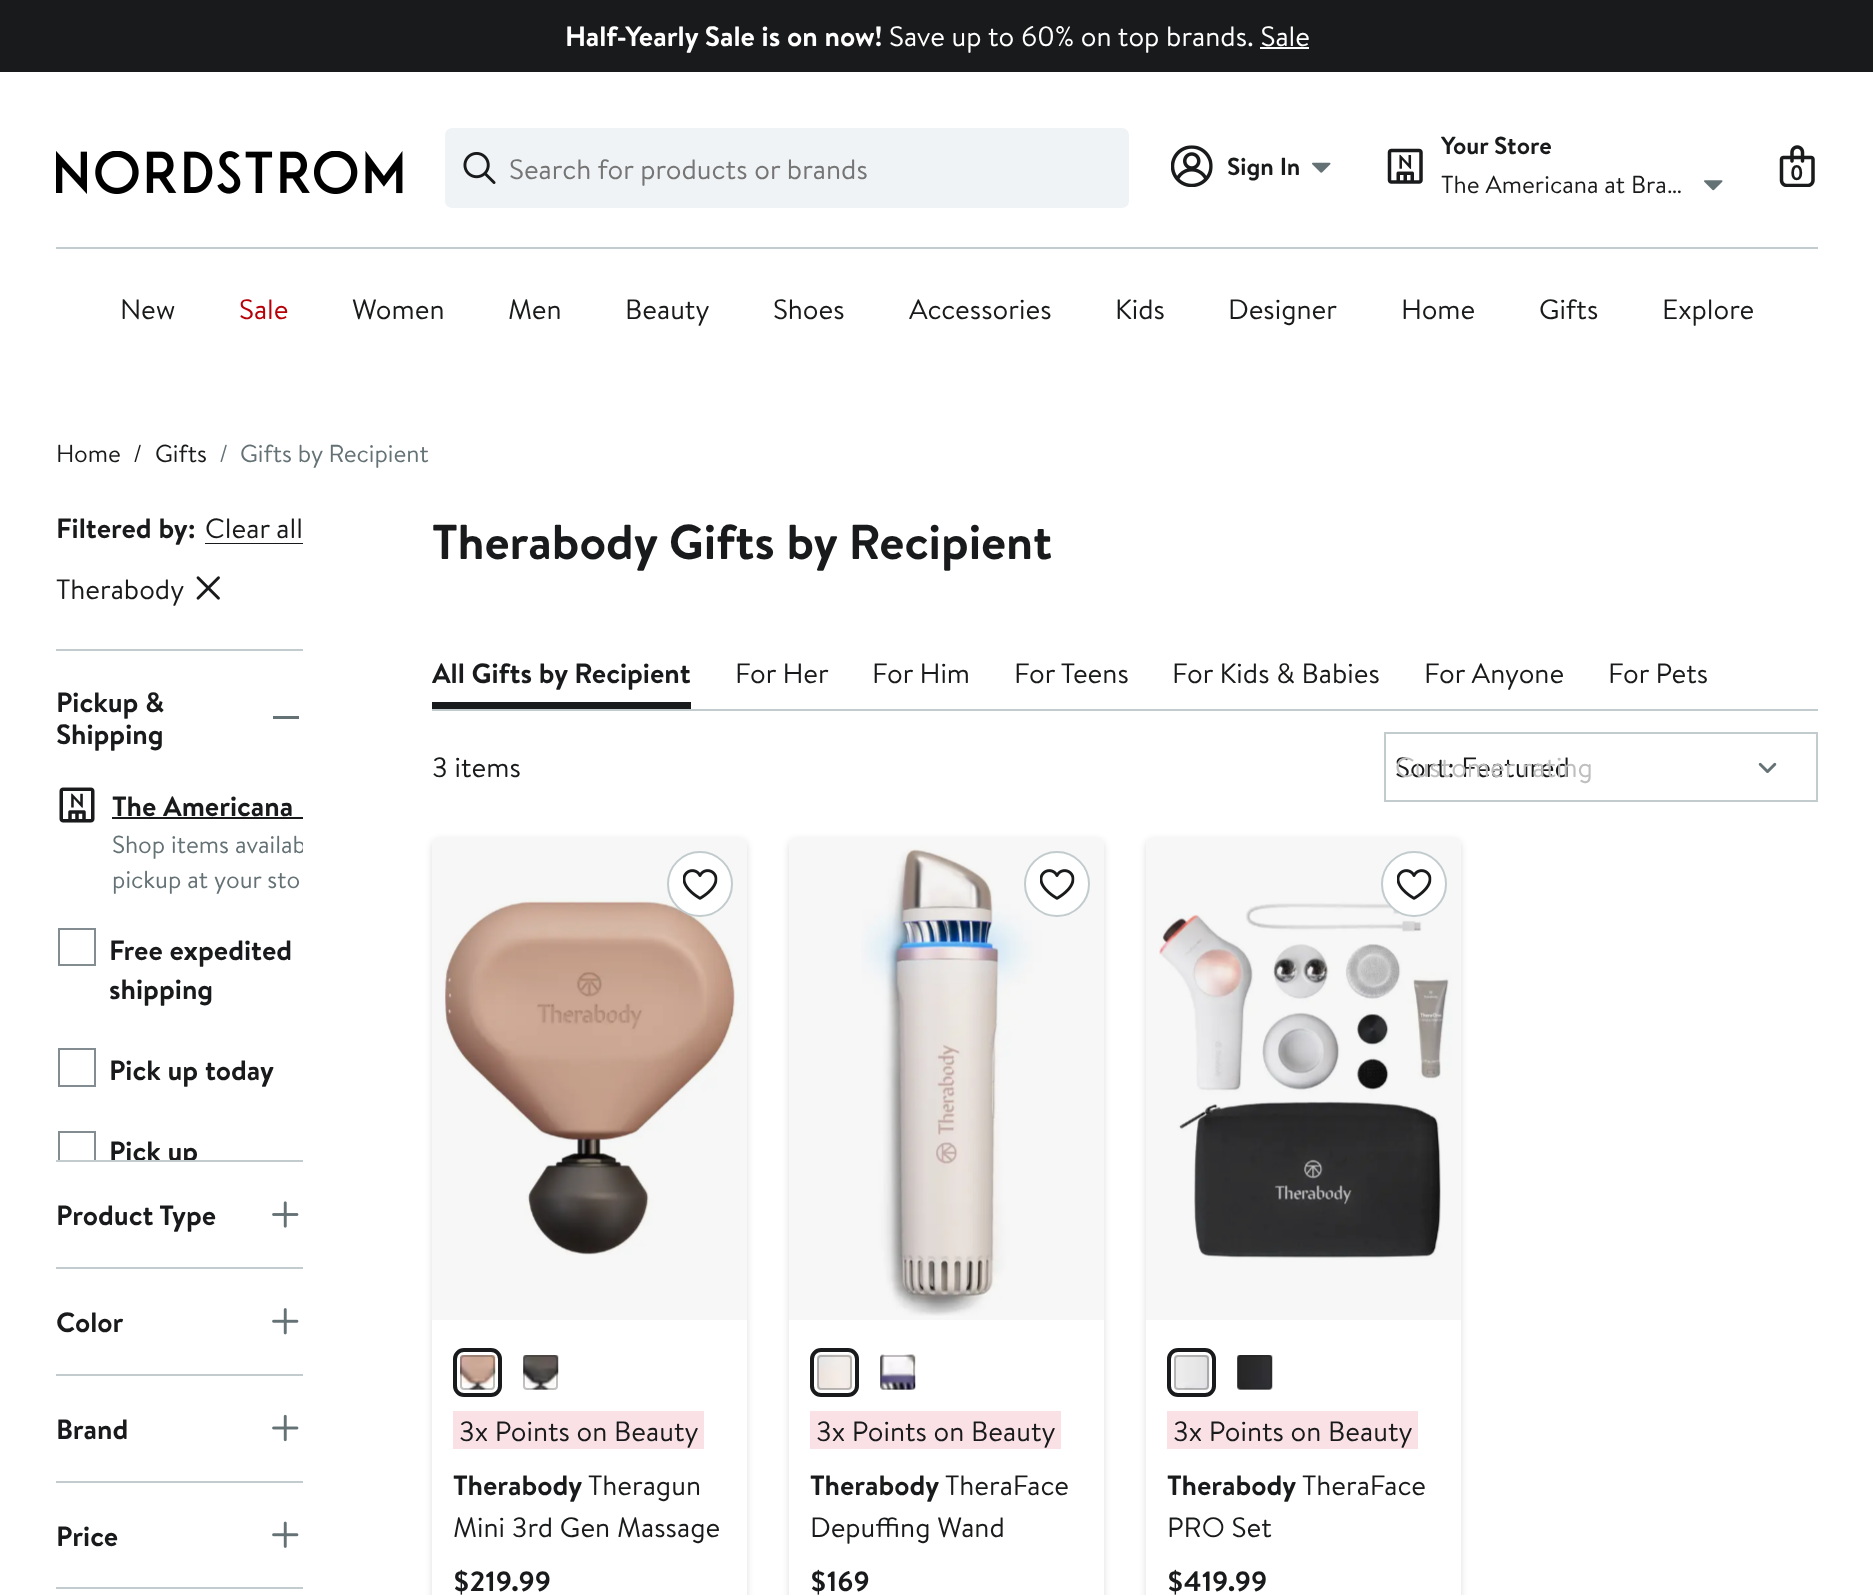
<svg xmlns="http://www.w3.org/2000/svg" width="1873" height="1595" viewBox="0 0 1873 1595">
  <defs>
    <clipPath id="clip1"><path d="M56 784h247v376H56z"/></clipPath>
    <clipPath id="clip2"><path d="M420 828H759V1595H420ZM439 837H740C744 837 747 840 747 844V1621C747 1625 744 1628 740 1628H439C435 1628 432 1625 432 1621V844C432 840 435 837 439 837Z" clip-rule="evenodd"/></clipPath>
    <clipPath id="clip3"><path d="M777 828H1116V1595H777ZM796 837H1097C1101 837 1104 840 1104 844V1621C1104 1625 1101 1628 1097 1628H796C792 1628 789 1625 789 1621V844C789 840 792 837 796 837Z" clip-rule="evenodd"/></clipPath>
    <clipPath id="clip4"><path d="M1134 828H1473V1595H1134ZM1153 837H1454C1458 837 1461 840 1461 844V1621C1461 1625 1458 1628 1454 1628H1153C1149 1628 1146 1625 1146 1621V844C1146 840 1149 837 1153 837Z" clip-rule="evenodd"/></clipPath>
  </defs>
  <rect width="100%" height="100%" fill="#fff"/>
  <path d="M0 0h1873v72H0z" fill="#191a1b"/>
  <path d="M1260 47h49v2H1260z" fill="#fff"/>
  <image x="56" y="151" width="347" height="43" href="img/1.png"/>
  <rect x="445" y="128" width="684" height="80" rx="7" fill="#f0f3f5"/>
  <image x="463" y="152" width="33" height="32" href="img/2.png"/>
  <image x="1171" y="145" width="42" height="42" href="img/3.png"/>
  <image x="1312" y="162" width="19" height="11" href="img/4.png"/>
  <image x="1387" y="148" width="36" height="36" href="img/5.png"/>
  <image x="1704" y="180" width="19" height="11" href="img/6.png"/>
  <image x="1779" y="145" width="36" height="42" href="img/7.png"/>
  <path d="M56 247h1762v2H56z" fill="#c2cbcd"/>
  <path d="M205 543h98v1H205z" fill="#191a1b"/>
  <image x="196" y="576" width="24" height="24" href="img/8.png"/>
  <path d="M56 649h247v2H56z" fill="#c2cbcd"/>
  <path d="M56 1160h247v2H56z" fill="#c2cbcd"/>
  <path d="M273 716h26v3H273z" fill="#647175"/>
  <image x="59" y="787" width="36" height="36" href="img/9.png"/>
  <path d="M112 817h191v2H112z" fill="#191a1b"/>
  <path d="M59 929h36v36H59z" fill="none" stroke="#838d91" stroke-width="2"/>
  <path d="M59 1049h36v37H59z" fill="none" stroke="#838d91" stroke-width="2"/>
  <g clip-path="url(#clip1)">
    <path d="M59 1132h36v36H59z" fill="none" stroke="#838d91" stroke-width="2"/>
  </g>
  <path d="M56 1267h247v2H56z" fill="#c2cbcd"/>
  <image x="272" y="1201" width="27" height="27" href="img/10.png"/>
  <path d="M56 1374h247v2H56z" fill="#c2cbcd"/>
  <image x="272" y="1308" width="27" height="27" href="img/11.png"/>
  <path d="M56 1481h247v2H56z" fill="#c2cbcd"/>
  <image x="272" y="1414" width="27" height="28" href="img/12.png"/>
  <path d="M56 1587h247v2H56z" fill="#c2cbcd"/>
  <image x="272" y="1521" width="27" height="27" href="img/13.png"/>
  <path d="M432 709h1386v2H432z" fill="#c2cbcd"/>
  <path d="M432 702h259v7H432z" fill="#191a1b"/>
  <path d="M1385 733h432v68H1385z" fill="none" stroke="#c2cbcd" stroke-width="2"/>
  <image x="1758" y="762" width="19" height="11" href="img/14.png"/>
  <g clip-path="url(#clip2)">
    <rect x="432" y="840" width="315" height="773" rx="7" fill="#191a1b26" filter="blur(3.5px)"/>
  </g>
  <path d="M439 837H740C744 837 747 840 747 844V1320H432V844C432 840 435 837 439 837Z" fill="#f7f7f7"/>
  <image x="442" y="838" width="303" height="417" href="img/15.png"/>
  <circle cx="700" cy="884" r="32" fill="#fff" stroke="#c2cbcd" stroke-width="2"/>
  <image x="683" y="869" width="35" height="31" href="img/16.png"/>
  <image x="460" y="1355" width="36" height="35" href="img/17.png"/>
  <rect x="461" y="1356" width="33" height="33" rx="3" fill="none" stroke="#191a1b45" stroke-width="2"/>
  <rect x="455" y="1350" width="45" height="45" rx="9" fill="none" stroke="#191a1b" stroke-width="4"/>
  <image x="523" y="1355" width="36" height="35" href="img/18.png"/>
  <rect x="524" y="1356" width="33" height="33" rx="3" fill="none" stroke="#191a1b45" stroke-width="2"/>
  <path d="M453 1411h251v38H453z" fill="#fae1e6"/>
  <g clip-path="url(#clip3)">
    <rect x="789" y="840" width="315" height="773" rx="7" fill="#191a1b26" filter="blur(3.5px)"/>
  </g>
  <path d="M796 837H1097C1101 837 1104 840 1104 844V1320H789V844C789 840 792 837 796 837Z" fill="#f7f7f7"/>
  <image x="861" y="838" width="241" height="478" href="img/19.png"/>
  <circle cx="1057" cy="884" r="32" fill="#fff" stroke="#c2cbcd" stroke-width="2"/>
  <image x="1040" y="869" width="35" height="31" href="img/16.png"/>
  <image x="817" y="1354" width="36" height="36" href="img/20.png"/>
  <rect x="818" y="1356" width="33" height="33" rx="3" fill="none" stroke="#191a1b45" stroke-width="2"/>
  <rect x="812" y="1350" width="45" height="45" rx="9" fill="none" stroke="#191a1b" stroke-width="4"/>
  <image x="880" y="1354" width="36" height="36" href="img/21.png"/>
  <rect x="881" y="1356" width="33" height="33" rx="3" fill="none" stroke="#191a1b45" stroke-width="2"/>
  <path d="M810 1411h251v38H810z" fill="#fae1e6"/>
  <g clip-path="url(#clip4)">
    <rect x="1146" y="840" width="315" height="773" rx="7" fill="#191a1b26" filter="blur(3.5px)"/>
  </g>
  <path d="M1153 837H1454C1458 837 1461 840 1461 844V1320H1146V844C1146 840 1149 837 1153 837Z" fill="#f7f7f7"/>
  <image x="1159" y="838" width="300" height="421" href="img/22.png"/>
  <circle cx="1414" cy="884" r="32" fill="#fff" stroke="#c2cbcd" stroke-width="2"/>
  <image x="1397" y="869" width="35" height="31" href="img/16.png"/>
  <image x="1174" y="1355" width="36" height="35" href="img/23.png"/>
  <rect x="1175" y="1356" width="33" height="33" rx="3" fill="none" stroke="#191a1b45" stroke-width="2"/>
  <rect x="1169" y="1350" width="45" height="45" rx="9" fill="none" stroke="#191a1b" stroke-width="4"/>
  <image x="1237" y="1355" width="36" height="35" href="img/24.png"/>
  <rect x="1238" y="1356" width="33" height="33" rx="3" fill="none" stroke="#191a1b45" stroke-width="2"/>
  <path d="M1167 1411h251v38H1167z" fill="#fae1e6"/>
  <text x="565" y="46" font-family="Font" font-size="28" font-weight="bold" fill="#fff">Half-Yearly Sale is on now!</text>
  <text x="889" y="46" font-family="Font" font-size="28" fill="#fff">Save up to 60% on top brands. Sale</text>
  <text x="509" y="179" font-family="Font" font-size="28" fill="#757575">Search for products or brands</text>
  <g font-family="Font" font-size="24.5" font-weight="bold" fill="#191a1b">
    <text x="1227" y="175">Sign In</text>
    <text x="1441" y="154">Your Store</text>
  </g>
  <text x="1441" y="193" font-family="Font" font-size="24.5" fill="#191a1b">The Americana at Bra…</text>
  <text x="1790" y="180" font-family="Font" font-size="21" font-weight="bold" fill="#191a1b">0</text>
  <text x="120" y="319" font-family="Font" font-size="28" fill="#191a1b">New</text>
  <text x="239" y="319" font-family="Font" font-size="28" fill="#b80009">Sale</text>
  <g font-family="Font" font-size="28" fill="#191a1b">
    <text x="352" y="319">Women</text>
    <text x="508" y="319">Men</text>
    <text x="625" y="319">Beauty</text>
    <text x="773" y="319">Shoes</text>
    <text x="909" y="319">Accessories</text>
    <text x="1115" y="319">Kids</text>
    <text x="1228" y="319">Designer</text>
    <text x="1401" y="319">Home</text>
    <text x="1539" y="319">Gifts</text>
    <text x="1662" y="319">Explore</text>
  </g>
  <g font-family="Font" font-size="24.5" fill="#191a1b">
    <text x="56" y="462">Home</text>
    <text x="133" y="462">/</text>
    <text x="155" y="462">Gifts</text>
  </g>
  <g font-family="Font" font-size="24.5" fill="#647175">
    <text x="219" y="462">/</text>
    <text x="240" y="462">Gifts by Recipient</text>
  </g>
  <text x="56" y="538" font-family="Font" font-size="28" font-weight="bold" fill="#191a1b">Filtered by:</text>
  <g font-family="Font" font-size="28" fill="#191a1b">
    <text x="205" y="538">Clear all</text>
    <text x="56" y="599">Therabody</text>
  </g>
  <g font-family="Font" font-size="28" font-weight="bold" fill="#191a1b">
    <text x="56" y="712">Pickup &amp;</text>
    <text x="56" y="744">Shipping</text>
    <text x="112" y="816">The Americana</text>
  </g>
  <g clip-path="url(#clip1)">
    <text x="112" y="853" font-family="Font" font-size="24.5" fill="#647175">Shop items availab</text>
  </g>
  <text x="112" y="888" font-family="Font" font-size="24.5" fill="#647175">pickup at your sto</text>
  <g font-family="Font" font-size="28" font-weight="bold" fill="#191a1b">
    <text x="109" y="960">Free expedited</text>
    <text x="109" y="999">shipping</text>
    <text x="109" y="1080">Pick up today</text>
  </g>
  <g clip-path="url(#clip1)">
    <text x="109" y="1161" font-family="Font" font-size="28" font-weight="bold" fill="#191a1b">Pick up</text>
  </g>
  <g font-family="Font" font-size="28" font-weight="bold" fill="#191a1b">
    <text x="56" y="1225">Product Type</text>
    <text x="56" y="1332">Color</text>
    <text x="56" y="1439">Brand</text>
    <text x="56" y="1546">Price</text>
  </g>
  <text x="432" y="559" font-family="Font" font-size="49" font-weight="bold" fill="#191a1b">Therabody Gifts by Recipient</text>
  <text x="432" y="683" font-family="Font" font-size="28" font-weight="bold" fill="#191a1b">All Gifts by Recipient</text>
  <g font-family="Font" font-size="28" fill="#191a1b">
    <text x="735" y="683">For Her</text>
    <text x="872" y="683">For Him</text>
    <text x="1014" y="683">For Teens</text>
    <text x="1172" y="683">For Kids &amp; Babies</text>
    <text x="1424" y="683">For Anyone</text>
    <text x="1608" y="683">For Pets</text>
    <text x="432" y="777">3 items</text>
    <text x="1395" y="777">Sort: Featured</text>
  </g>
  <text x="1395" y="777" font-family="Font" font-size="28" fill="#bfbfbf">Customer rating</text>
  <text x="459" y="1441" font-family="Font" font-size="28" fill="#191a1b">3x Points on Beauty</text>
  <text x="453" y="1495" font-family="Font" font-size="28" font-weight="bold" fill="#191a1b">Therabody</text>
  <g font-family="Font" font-size="28" fill="#191a1b">
    <text x="588" y="1495">Theragun</text>
    <text x="453" y="1537">Mini 3rd Gen Massage</text>
  </g>
  <text x="453" y="1591" font-family="Font" font-size="28" font-weight="bold" fill="#191a1b">$219.99</text>
  <text x="816" y="1441" font-family="Font" font-size="28" fill="#191a1b">3x Points on Beauty</text>
  <text x="810" y="1495" font-family="Font" font-size="28" font-weight="bold" fill="#191a1b">Therabody</text>
  <g font-family="Font" font-size="28" fill="#191a1b">
    <text x="945" y="1495">TheraFace</text>
    <text x="810" y="1537">Depuffing Wand</text>
  </g>
  <text x="810" y="1591" font-family="Font" font-size="28" font-weight="bold" fill="#191a1b">$169</text>
  <text x="1173" y="1441" font-family="Font" font-size="28" fill="#191a1b">3x Points on Beauty</text>
  <text x="1167" y="1495" font-family="Font" font-size="28" font-weight="bold" fill="#191a1b">Therabody</text>
  <g font-family="Font" font-size="28" fill="#191a1b">
    <text x="1302" y="1495">TheraFace</text>
    <text x="1167" y="1537">PRO Set</text>
  </g>
  <text x="1167" y="1591" font-family="Font" font-size="28" font-weight="bold" fill="#191a1b">$419.99</text>
</svg>
